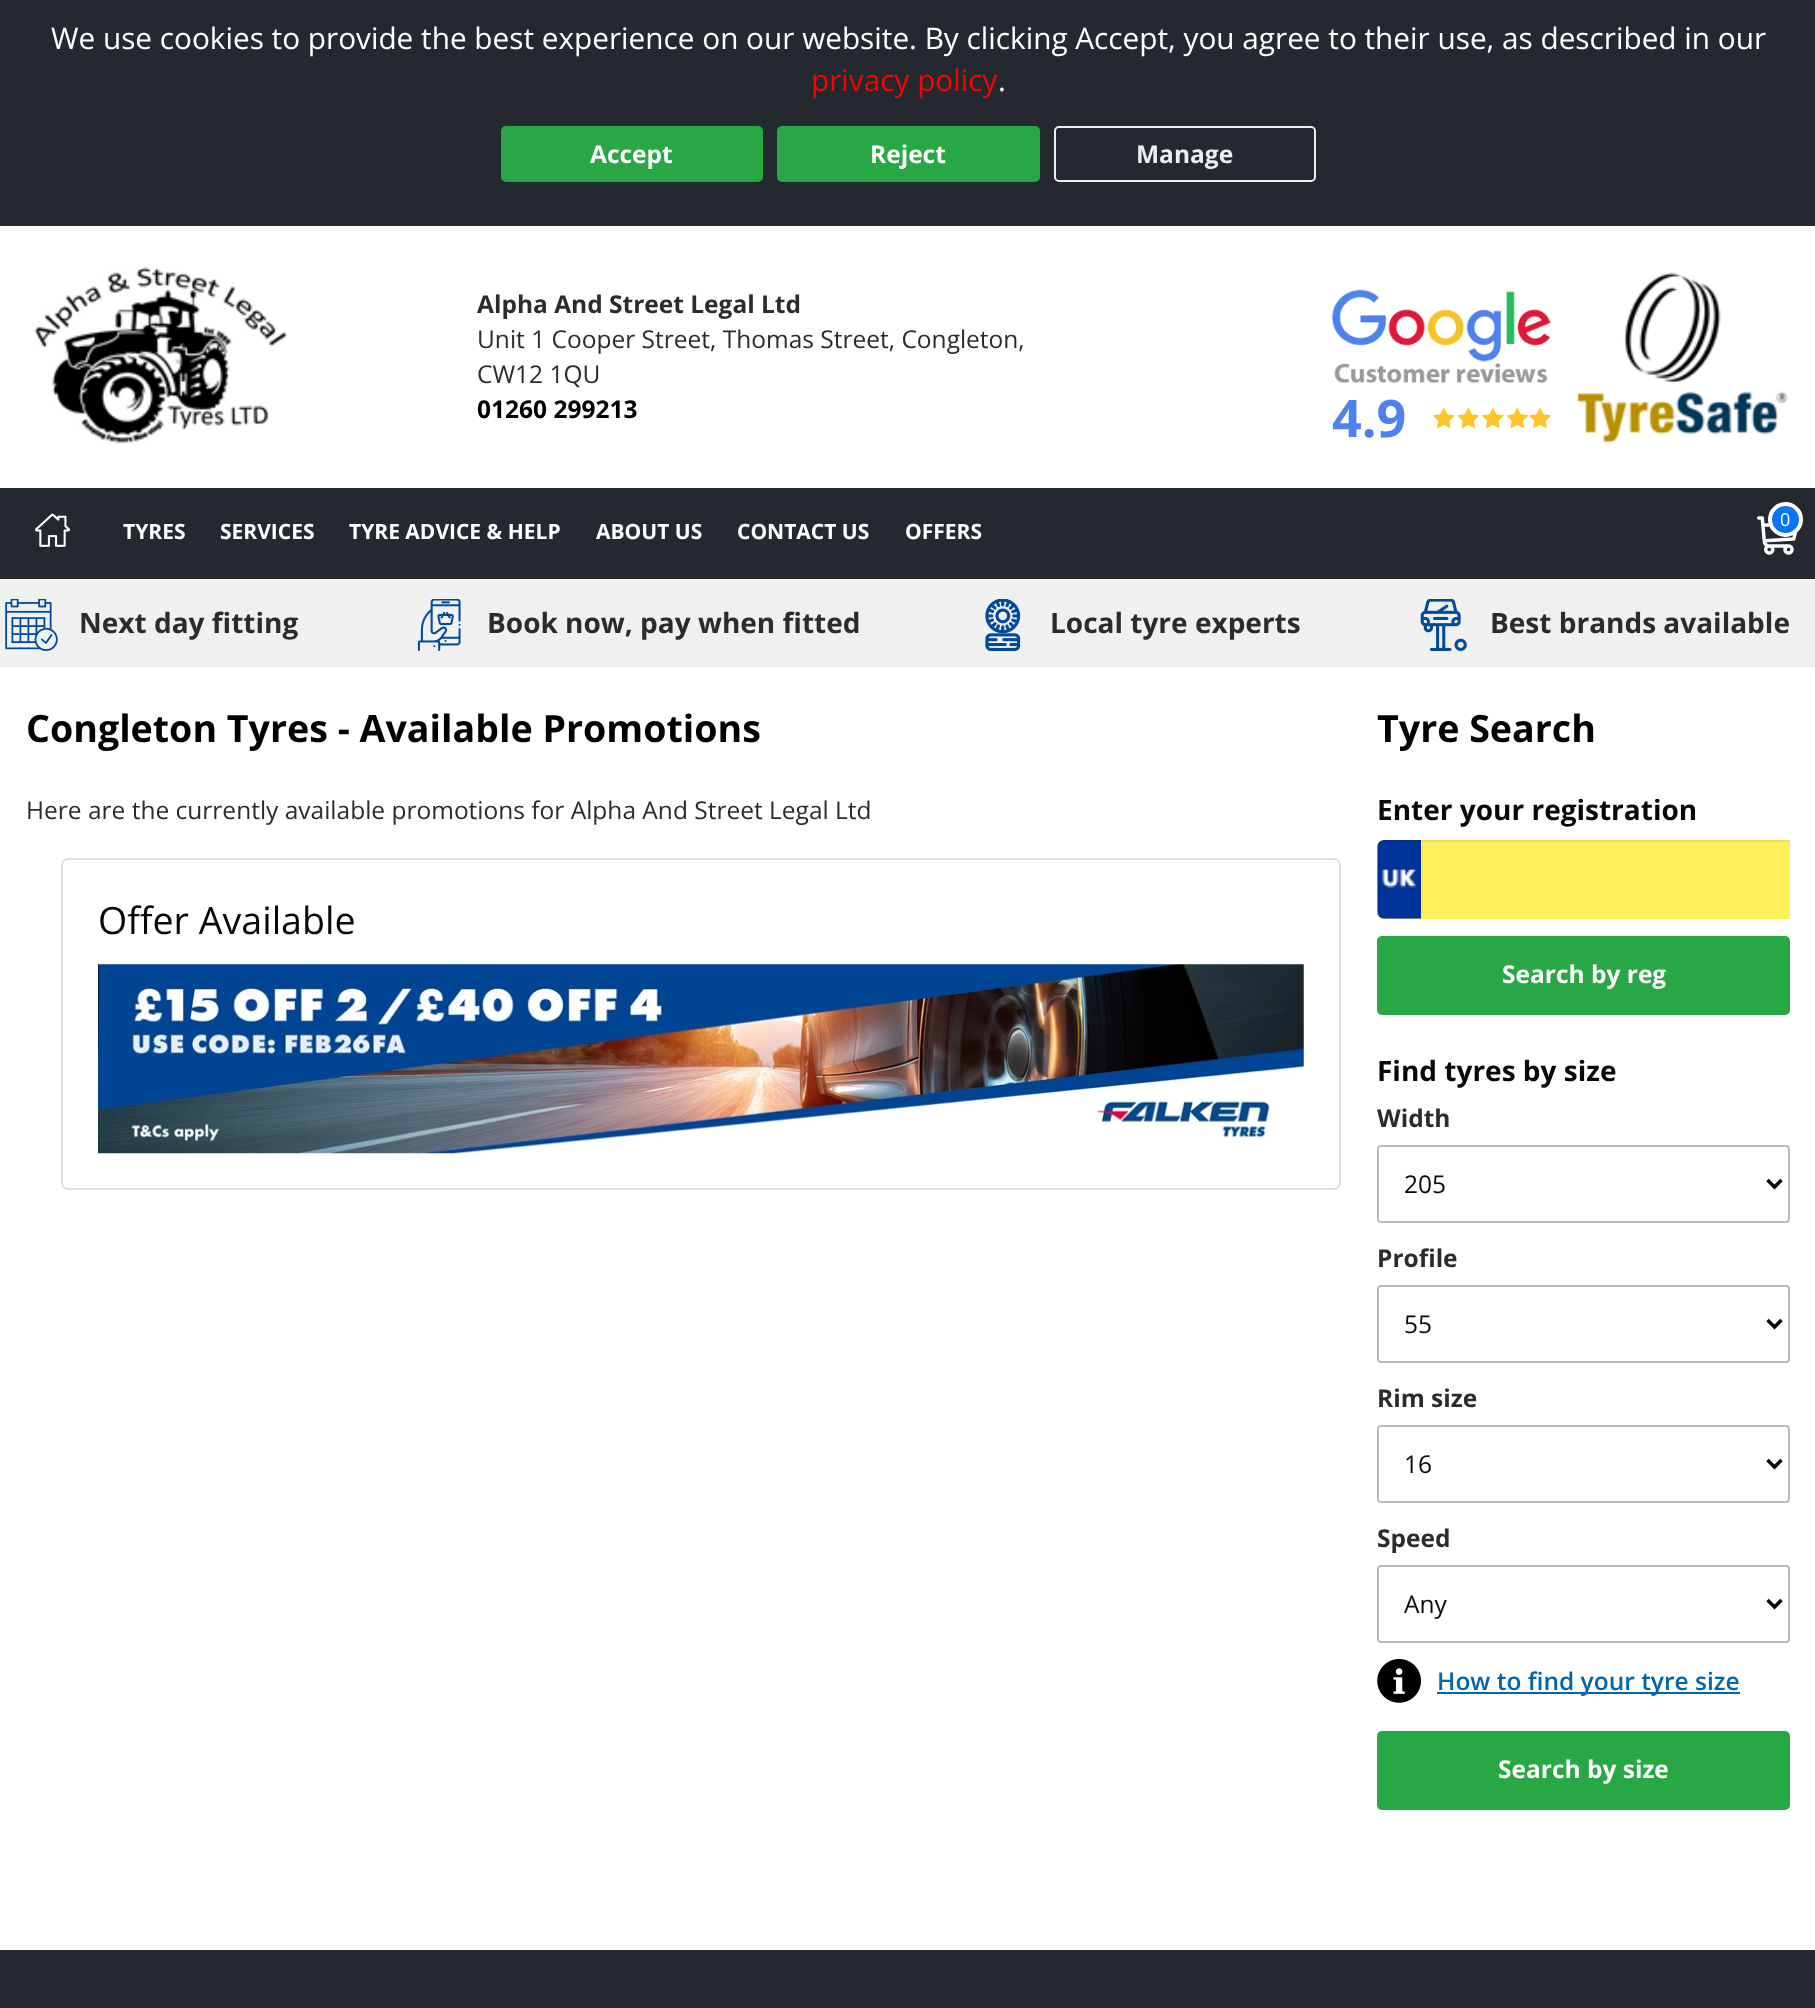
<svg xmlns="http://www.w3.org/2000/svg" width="1815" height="2008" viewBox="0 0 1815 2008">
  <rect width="100%" height="100%" fill="#fff"/>
  <path d="M0 0h1815v226H0z" fill="#24292f"/>
  <rect x="501" y="126" width="262" height="56" rx="5" fill="#28a745"/>
  <rect x="777" y="126" width="263" height="56" rx="5" fill="#28a745"/>
  <rect x="1055" y="127" width="260" height="54" rx="4" fill="none" stroke="#eee" stroke-width="2"/>
  <image x="34" y="267" width="254" height="177" href="img/1.png"/>
  <image x="1331" y="289" width="220" height="95" href="img/2.png"/>
  <image x="1433" y="407" width="22" height="21" href="img/3.png"/>
  <image x="1457" y="407" width="22" height="21" href="img/4.png"/>
  <image x="1482" y="407" width="22" height="21" href="img/3.png"/>
  <image x="1506" y="407" width="22" height="21" href="img/4.png"/>
  <image x="1529" y="408" width="22" height="20" href="img/5.png"/>
  <image x="1576" y="272" width="213" height="172" href="img/6.png"/>
  <path d="M0 488h1815v91H0z" fill="#24292f"/>
  <image x="35" y="513" width="35" height="34" href="img/7.png"/>
  <image x="1757" y="516" width="41" height="39" href="img/8.png"/>
  <circle cx="1785.5" cy="519.5" r="15.5" fill="#0875f4" stroke="#fff" stroke-width="4"/>
  <path d="M0 579h1815v88H0z" fill="#f0f0f0"/>
  <image x="5" y="599" width="53" height="52" href="img/9.png"/>
  <image x="417" y="599" width="44" height="52" href="img/10.png"/>
  <image x="985" y="599" width="36" height="52" href="img/11.png"/>
  <image x="1420" y="599" width="47" height="52" href="img/12.png"/>
  <path d="M0 672h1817v1283H0z" fill="#bbb" filter="blur(3.5px)"/>
  <path d="M0 667h1815v1283H0z" fill="#fff"/>
  <rect x="62" y="859" width="1278" height="330" rx="6" fill="none" stroke="#dfdfdf" stroke-width="2"/>
  <image x="98" y="964" width="1206" height="190" href="img/13.png"/>
  <path d="M1384 840H1790V919H1384C1380 919 1377 916 1377 912V847C1377 843 1380 840 1384 840Z" fill="#fdf059"/>
  <image x="1377" y="840" width="44" height="79" href="img/14.png"/>
  <path d="M1384 842H1790V840H1384C1379 840 1377 845 1377 849C1377 845 1380 842 1384 842Z" fill="#00000012"/>
  <rect x="1377" y="936" width="413" height="79" rx="5" fill="#28a745"/>
  <rect x="1378" y="1146" width="411" height="76" rx="3" fill="none" stroke="#bbb" stroke-width="2"/>
  <path d="M1767.5 1180L1774.5 1187L1781.5 1180" fill="none" stroke="#080808" stroke-width="3.5"/>
  <rect x="1378" y="1286" width="411" height="76" rx="3" fill="none" stroke="#bbb" stroke-width="2"/>
  <path d="M1767.5 1320L1774.5 1327L1781.5 1320" fill="none" stroke="#080808" stroke-width="3.5"/>
  <rect x="1378" y="1426" width="411" height="76" rx="3" fill="none" stroke="#bbb" stroke-width="2"/>
  <path d="M1767.5 1460L1774.5 1467L1781.5 1460" fill="none" stroke="#080808" stroke-width="3.5"/>
  <rect x="1378" y="1566" width="411" height="76" rx="3" fill="none" stroke="#bbb" stroke-width="2"/>
  <path d="M1767.5 1600L1774.5 1607L1781.5 1600" fill="none" stroke="#080808" stroke-width="3.5"/>
  <image x="1377" y="1659" width="44" height="44" href="img/15.png"/>
  <path d="M1437 1692h303v2H1437z" fill="#0065ad"/>
  <rect x="1377" y="1731" width="413" height="79" rx="5" fill="#28a745"/>
  <path d="M0 1950h1815v58H0z" fill="#24292f"/>
  <text x="51" y="49" font-family="Open Sans" font-size="29.75" fill="#fff">We use cookies to provide the best experience on our website. By clicking Accept, you agree to their use, as described in our</text>
  <text x="811" y="91" font-family="Open Sans" font-size="29.75" fill="#f00">privacy policy</text>
  <text x="998" y="91" font-family="Open Sans" font-size="29.75" fill="#fff">.</text>
  <g font-family="Open Sans" font-size="24.5" font-weight="bold" fill="#fff">
    <text x="590" y="163">Accept</text>
    <text x="870" y="163">Reject</text>
  </g>
  <text x="1136" y="163" font-family="Open Sans" font-size="24.5" font-weight="bold" fill="#eee">Manage</text>
  <text x="477" y="313" font-family="Open Sans" font-size="24.5" font-weight="bold" fill="#2b2b2b">Alpha And Street Legal Ltd</text>
  <g font-family="Open Sans" font-size="24.5" fill="#2b2b2b">
    <text x="477" y="348">Unit 1 Cooper Street, Thomas Street, Congleton,</text>
    <text x="477" y="383">CW12 1QU</text>
  </g>
  <text x="477" y="418" font-family="Open Sans" font-size="24.5" font-weight="bold" fill="#000">01260 299213</text>
  <text x="1332" y="437" font-family="Open Sans" font-size="52" font-weight="bold" fill="#4e81ed">4.9</text>
  <text x="1780" y="526" font-family="Open Sans" font-size="18" fill="#fff">0</text>
  <g font-family="Open Sans" font-size="21" font-weight="bold" fill="#fff">
    <text x="123" y="539">TYRES</text>
    <text x="220" y="539">SERVICES</text>
    <text x="349" y="539">TYRE ADVICE &amp; HELP</text>
    <text x="596" y="539">ABOUT US</text>
    <text x="737" y="539">CONTACT US</text>
    <text x="905" y="539">OFFERS</text>
  </g>
  <g font-family="Open Sans" font-size="28" font-weight="bold" fill="#2b2b2b">
    <text x="79" y="633">Next day fitting</text>
    <text x="487" y="633">Book now, pay when fitted</text>
    <text x="1050" y="633">Local tyre experts</text>
    <text x="1490" y="633">Best brands available</text>
  </g>
  <text x="26" y="742" font-family="Open Sans" font-size="37.6" font-weight="bold" fill="#000">Congleton Tyres - Available Promotions</text>
  <text x="26" y="819" font-family="Open Sans" font-size="24.5" fill="#2b2b2b">Here are the currently available promotions for Alpha And Street Legal Ltd</text>
  <text x="98" y="934" font-family="Open Sans" font-size="37.6" fill="#080808">Offer Available</text>
  <text x="1377" y="742" font-family="Open Sans" font-size="37.6" font-weight="bold" fill="#000">Tyre Search</text>
  <text x="1377" y="820" font-family="Open Sans" font-size="28" font-weight="bold" fill="#080808">Enter your registration</text>
  <text x="1502" y="983" font-family="Open Sans" font-size="24.5" font-weight="bold" fill="#fff">Search by reg</text>
  <text x="1377" y="1081" font-family="Open Sans" font-size="28" font-weight="bold" fill="#080808">Find tyres by size</text>
  <text x="1377" y="1127" font-family="Open Sans" font-size="24.5" font-weight="bold" fill="#2b2b2b">Width</text>
  <text x="1404" y="1193" font-family="Open Sans" font-size="24.5" fill="#080808">205</text>
  <text x="1377" y="1267" font-family="Open Sans" font-size="24.5" font-weight="bold" fill="#2b2b2b">Profile</text>
  <text x="1404" y="1333" font-family="Open Sans" font-size="24.5" fill="#080808">55</text>
  <text x="1377" y="1407" font-family="Open Sans" font-size="24.5" font-weight="bold" fill="#2b2b2b">Rim size</text>
  <text x="1404" y="1473" font-family="Open Sans" font-size="24.5" fill="#080808">16</text>
  <text x="1377" y="1547" font-family="Open Sans" font-size="24.5" font-weight="bold" fill="#2b2b2b">Speed</text>
  <text x="1404" y="1613" font-family="Open Sans" font-size="24.5" fill="#080808">Any</text>
  <text x="1437" y="1690" font-family="Open Sans" font-size="24.5" font-weight="600" fill="#0065ad">How to find your tyre size</text>
  <text x="1498" y="1778" font-family="Open Sans" font-size="24.5" font-weight="bold" fill="#fff">Search by size</text>
</svg>
